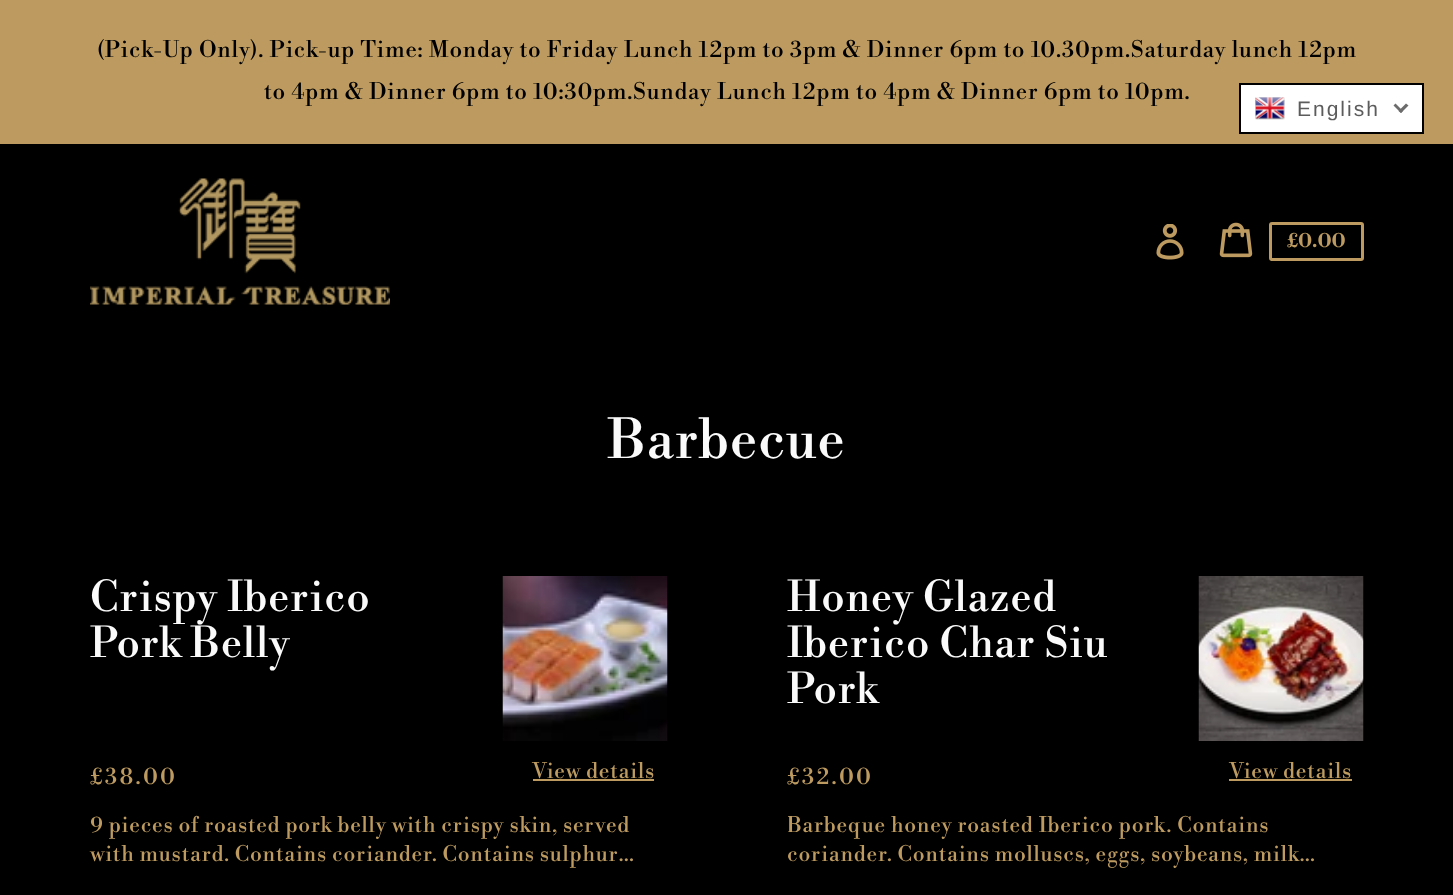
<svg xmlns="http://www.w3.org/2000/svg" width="1453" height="895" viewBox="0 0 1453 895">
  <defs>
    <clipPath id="clip1"><path d="M788 812h576v60H788z"/></clipPath>
  </defs>
  <rect width="100%" height="100%" fill="#000"/>
  <path d="M0 0h1453v144H0z" fill="#bd9b60"/>
  <image x="90" y="178" width="300" height="127" href="img/1.png"/>
  <image x="1156" y="224" width="28" height="36" href="img/2.png"/>
  <image x="1219" y="222" width="34" height="36" href="img/3.png"/>
  <rect x="1270.5" y="223.5" width="92" height="36" rx="1.5" fill="none" stroke="#bd9b60" stroke-width="3"/>
  <path d="M1240 84h183v49H1240z" fill="#fff" stroke="#000" stroke-width="2"/>
  <image x="1255" y="97" width="30" height="23" href="img/4.png"/>
  <path d="M1406 103.5L1408.5 105.5L1401 113L1398.5 111Z" fill="#6c6c6c"/>
  <path d="M1395.5 103.5L1403 111L1401 113L1393.5 105.5Z" fill="#6c6c6c"/>
  <image x="502" y="576" width="166" height="165" href="img/5.png"/>
  <path d="M533 779h121v2H533z" fill="#bd9b60"/>
  <image x="1198" y="576" width="166" height="165" href="img/6.png"/>
  <path d="M1229 779h123v2H1229z" fill="#bd9b60"/>
  <g font-family="Libre Bodoni" font-size="22.5" letter-spacing="0.75" fill="#000">
    <text x="97" y="57">(Pick-Up Only). Pick-up Time: Monday to Friday Lunch 12pm to 3pm &amp; Dinner 6pm to 10.30pm.Saturday lunch 12pm</text>
    <text x="264" y="99">to 4pm &amp; Dinner 6pm to 10:30pm.Sunday Lunch 12pm to 4pm &amp; Dinner 6pm to 10pm.</text>
  </g>
  <text x="1287" y="247" font-family="Libre Bodoni" font-size="19.5" font-weight="bold" fill="#bd9b60">£0.00</text>
  <text x="1297" y="116" font-family="Liberation Sans" font-size="21" letter-spacing="2" fill="#5c5c5c">English</text>
  <text x="608" y="458" font-family="Libre Bodoni" font-size="54" letter-spacing="0.75" fill="#fafafa">Barbecue</text>
  <g font-family="Libre Bodoni" font-size="41.75" letter-spacing="0.75" fill="#fafafa">
    <text x="90" y="611">Crispy Iberico</text>
    <text x="90" y="657">Pork Belly</text>
  </g>
  <text x="90" y="784" font-family="Libre Bodoni" font-size="22.5" letter-spacing="2.25" fill="#bd9b60">£38.00</text>
  <g font-family="Libre Bodoni" font-size="21.1" letter-spacing="0.75" fill="#bd9b60">
    <text x="532" y="778">View details</text>
    <text x="90" y="832">9 pieces of roasted pork belly with crispy skin, served</text>
    <text x="90" y="861">with mustard. Contains coriander. Contains sulphur…</text>
  </g>
  <g font-family="Libre Bodoni" font-size="41.75" letter-spacing="0.75" fill="#fafafa">
    <text x="787" y="611">Honey Glazed</text>
    <text x="787" y="657">Iberico Char Siu</text>
    <text x="787" y="703">Pork</text>
  </g>
  <text x="787" y="784" font-family="Libre Bodoni" font-size="22.5" letter-spacing="2.25" fill="#bd9b60">£32.00</text>
  <text x="1229" y="778" font-family="Libre Bodoni" font-size="21.1" letter-spacing="0.75" fill="#bd9b60">View details</text>
  <g clip-path="url(#clip1)">
    <text x="787" y="832" font-family="Libre Bodoni" font-size="21.1" letter-spacing="0.75" fill="#bd9b60">Barbeque honey roasted Iberico pork. Contains</text>
  </g>
  <text x="787" y="861" font-family="Libre Bodoni" font-size="21.1" letter-spacing="0.75" fill="#bd9b60">coriander. Contains molluscs, eggs, soybeans, milk…</text>
</svg>
